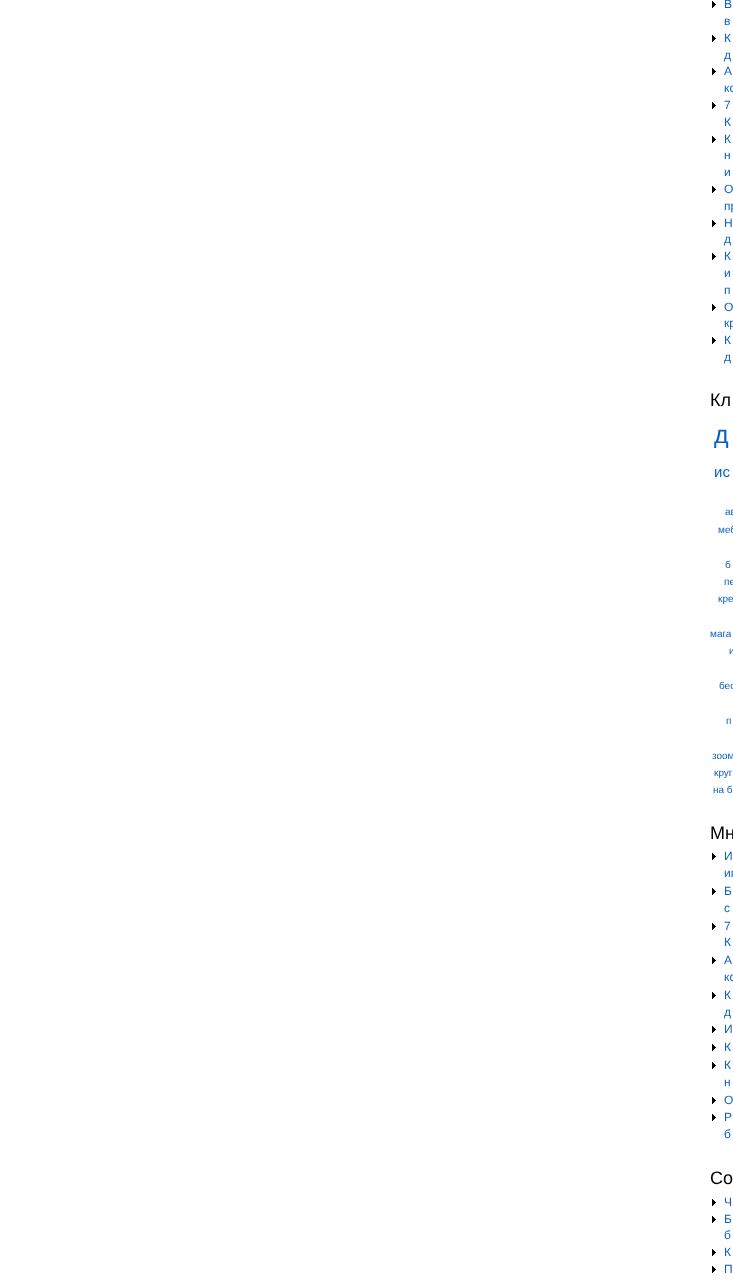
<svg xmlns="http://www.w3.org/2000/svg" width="733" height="1283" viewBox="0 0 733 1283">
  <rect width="100%" height="100%" fill="#fff"/>
  <image x="712" y="1" width="4" height="7" href="img/1.png"/>
  <image x="712" y="35" width="4" height="7" href="img/1.png"/>
  <image x="712" y="68" width="4" height="7" href="img/1.png"/>
  <image x="712" y="102" width="4" height="7" href="img/1.png"/>
  <image x="712" y="136" width="4" height="7" href="img/1.png"/>
  <image x="712" y="186" width="4" height="7" href="img/1.png"/>
  <image x="712" y="220" width="4" height="7" href="img/1.png"/>
  <image x="712" y="253" width="4" height="7" href="img/1.png"/>
  <image x="712" y="304" width="4" height="7" href="img/1.png"/>
  <image x="712" y="337" width="4" height="7" href="img/1.png"/>
  <image x="712" y="853" width="4" height="7" href="img/1.png"/>
  <image x="712" y="888" width="4" height="7" href="img/1.png"/>
  <image x="712" y="923" width="4" height="7" href="img/1.png"/>
  <image x="712" y="957" width="4" height="7" href="img/1.png"/>
  <image x="712" y="992" width="4" height="7" href="img/1.png"/>
  <image x="712" y="1026" width="4" height="7" href="img/1.png"/>
  <image x="712" y="1044" width="4" height="7" href="img/1.png"/>
  <image x="712" y="1062" width="4" height="7" href="img/1.png"/>
  <image x="712" y="1097" width="4" height="7" href="img/1.png"/>
  <image x="712" y="1114" width="4" height="7" href="img/1.png"/>
  <image x="712" y="1199" width="4" height="7" href="img/1.png"/>
  <image x="712" y="1216" width="4" height="7" href="img/1.png"/>
  <image x="712" y="1249" width="4" height="7" href="img/1.png"/>
  <image x="712" y="1266" width="4" height="7" href="img/1.png"/>
  <g font-family="Liberation Sans" font-size="12" fill="#0e5fbf">
    <text x="724" y="8">В</text>
    <text x="724" y="25">в</text>
    <text x="724" y="42">К</text>
    <text x="724" y="59">д</text>
    <text x="724" y="75">А</text>
    <text x="724" y="92">ко</text>
    <text x="724" y="109">7</text>
    <text x="724" y="126">К</text>
    <text x="724" y="143">К</text>
    <text x="724" y="159">н</text>
    <text x="724" y="176">и</text>
    <text x="724" y="193">О</text>
    <text x="724" y="210">пр</text>
    <text x="724" y="227">Н</text>
    <text x="724" y="243">д</text>
    <text x="724" y="260">К</text>
    <text x="724" y="277">и</text>
    <text x="724" y="294">п</text>
    <text x="724" y="311">О</text>
    <text x="724" y="327">кр</text>
    <text x="724" y="344">К</text>
    <text x="724" y="361">д</text>
  </g>
  <text x="710" y="406" font-family="Liberation Sans" font-size="18" fill="#000">Кл</text>
  <text x="714" y="443" font-family="Liberation Sans" font-size="25" fill="#0e5fbf">д</text>
  <text x="714" y="477" font-family="Liberation Sans" font-size="15" fill="#0e5fbf">ис</text>
  <g font-family="Liberation Sans" font-size="10" fill="#0e5fbf">
    <text x="725" y="515">ав</text>
    <text x="718" y="533">меб</text>
    <text x="725" y="568">б</text>
    <text x="724" y="585">пе</text>
    <text x="718" y="602">кре</text>
    <text x="710" y="637">мага</text>
    <text x="729" y="654">и</text>
    <text x="719" y="689">бес</text>
    <text x="726" y="724">п</text>
    <text x="712" y="759">зоом</text>
    <text x="714" y="776">круг</text>
    <text x="713" y="793">на б</text>
  </g>
  <text x="710" y="839" font-family="Liberation Sans" font-size="18" fill="#000">Мн</text>
  <g font-family="Liberation Sans" font-size="12" fill="#0e5fbf">
    <text x="724" y="860">И</text>
    <text x="724" y="877">иг</text>
    <text x="724" y="895">Б</text>
    <text x="724" y="912">с</text>
    <text x="724" y="930">7</text>
    <text x="724" y="946">К</text>
    <text x="724" y="964">А</text>
    <text x="724" y="981">ко</text>
    <text x="724" y="999">К</text>
    <text x="724" y="1016">д</text>
    <text x="724" y="1033">И</text>
    <text x="724" y="1051">К</text>
    <text x="724" y="1069">К</text>
    <text x="724" y="1086">н</text>
    <text x="724" y="1104">О</text>
    <text x="724" y="1121">Р</text>
    <text x="724" y="1138">б</text>
  </g>
  <text x="710" y="1184" font-family="Liberation Sans" font-size="18" fill="#000">Со</text>
  <g font-family="Liberation Sans" font-size="12" fill="#0e5fbf">
    <text x="724" y="1206">Ч</text>
    <text x="724" y="1223">Б</text>
    <text x="724" y="1239">б</text>
    <text x="724" y="1256">К</text>
    <text x="724" y="1273">П</text>
  </g>
</svg>
